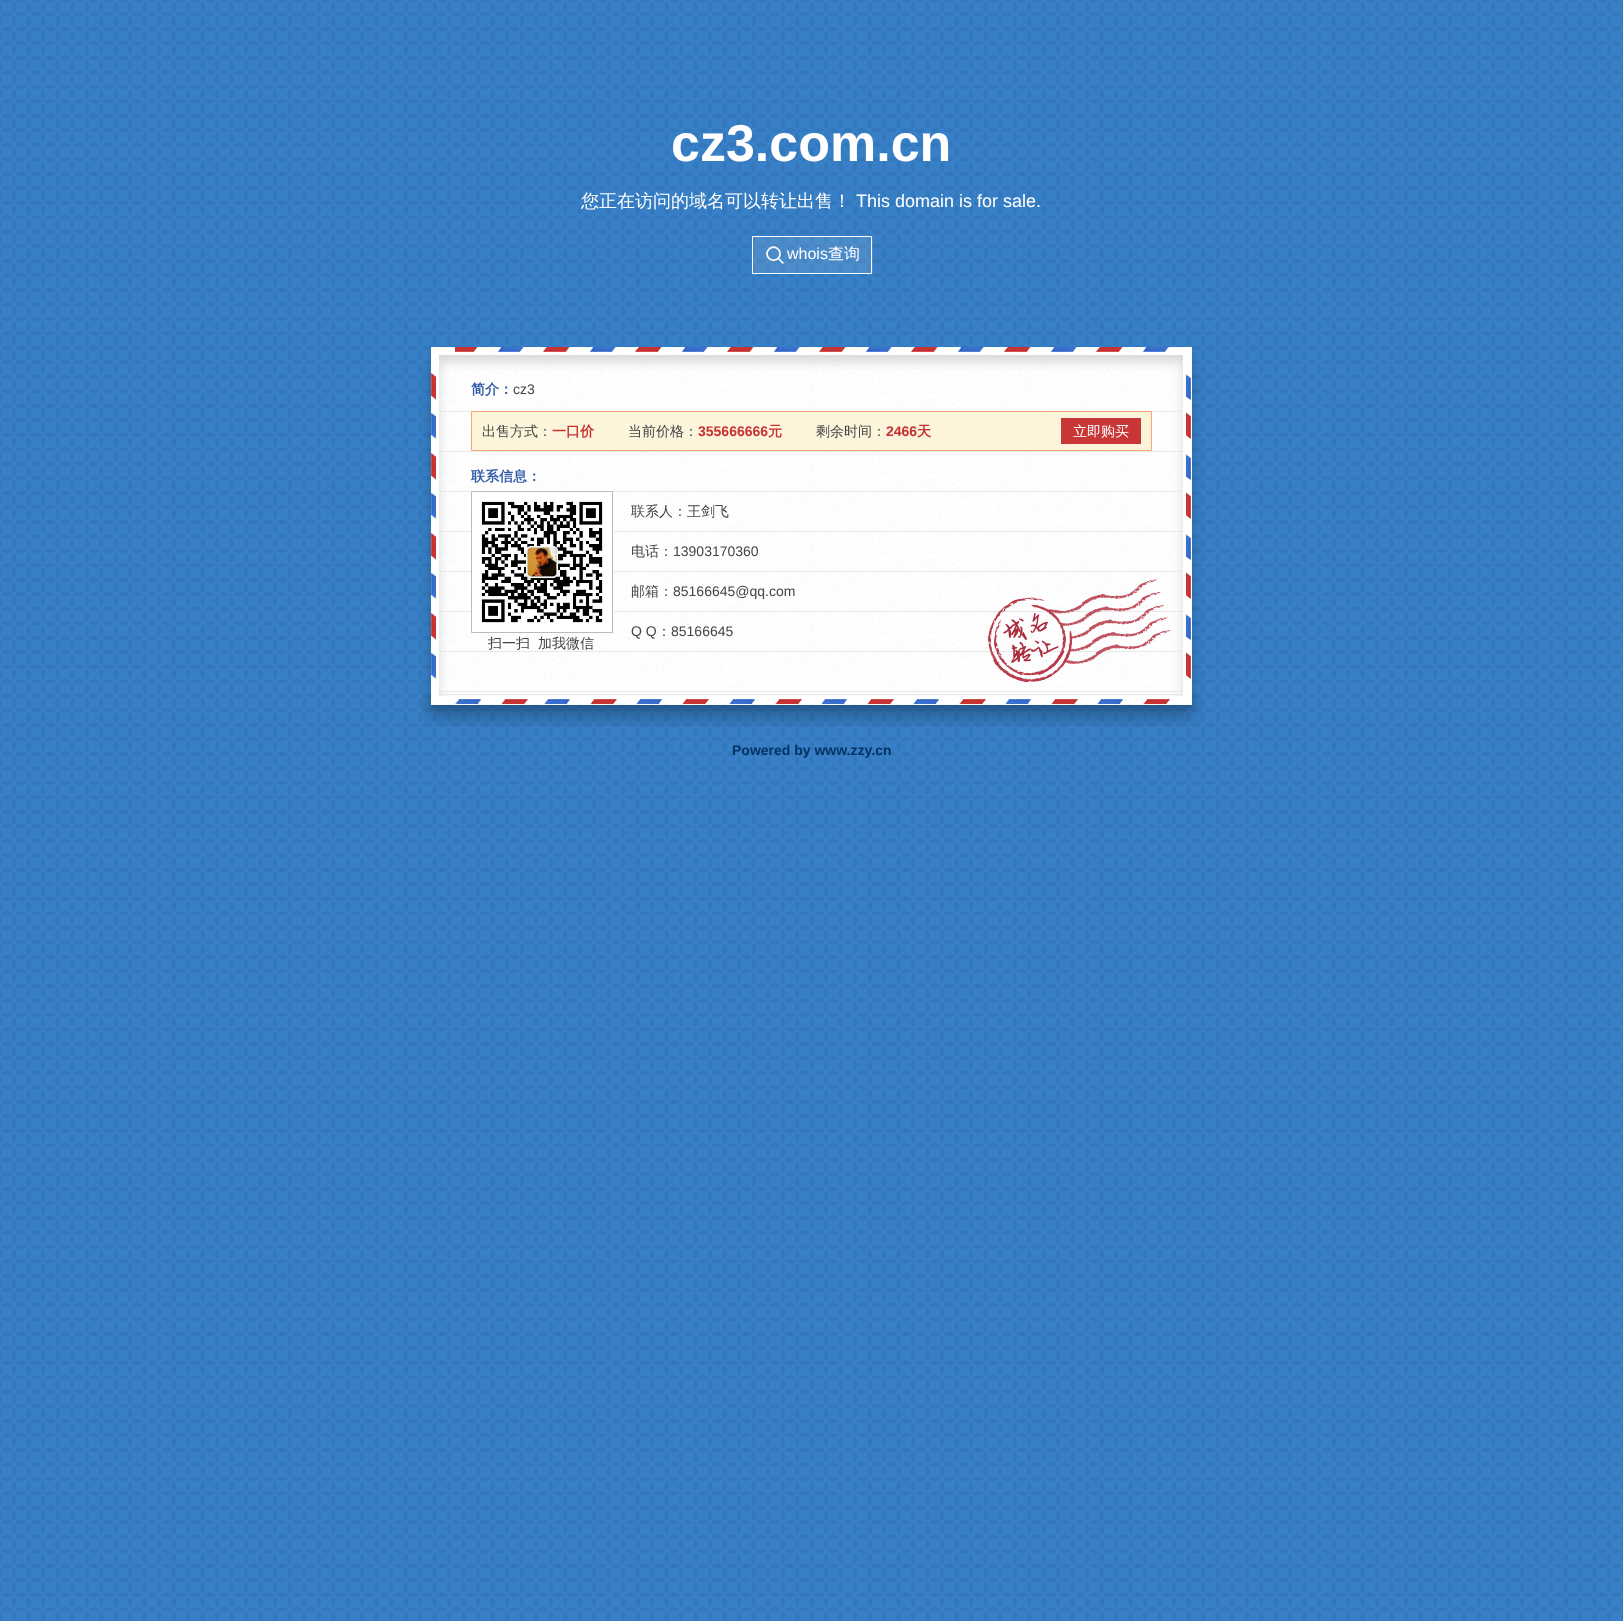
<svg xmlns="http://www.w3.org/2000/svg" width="1623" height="1621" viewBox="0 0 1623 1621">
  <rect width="100%" height="100%" fill="#fff"/>
  <image x="0" y="0" width="1623" height="1621" href="img/1.png"/>
  <path d="M752.5 236.5h119v37H752.5z" fill="none" stroke="#fff"/>
  <image x="766" y="246" width="18" height="18" href="img/2.png"/>
  <path d="M753 237h120v36H753z" fill="#ffffff1a"/>
  <image x="421" y="347" width="781" height="25" href="img/3.png"/>
  <image x="421" y="372" width="781" height="321" href="img/4.png"/>
  <path d="M471.5 411.5h680v39H471.5z" fill="#fcf4db" stroke="#ffa670"/>
  <path d="M1061 418h80v26H1061z" fill="#c93636"/>
  <path d="M471.5 491.5h141v141H471.5z" fill="none" stroke="#bbb"/>
  <image x="472" y="492" width="140" height="140" href="img/5.png"/>
  <image x="988" y="579" width="183" height="104" href="img/6.png"/>
  <image x="421" y="693" width="781" height="34" href="img/7.png"/>
  <text x="671" y="161" font-family="Liberation Sans" font-size="52" font-weight="bold" fill="#fff">cz3.com.cn</text>
  <text x="581" y="207" font-family="WenQuanYi Zen Hei" font-size="18" font-weight="500" fill="#fff">您正在访问的域名可以转让出售！</text>
  <text x="856" y="207" font-family="Liberation Sans" font-size="18" fill="#fff">This domain is for sale.</text>
  <text x="787" y="259" font-family="Liberation Sans" font-size="16" fill="#fff">whois</text>
  <text x="828" y="259" font-family="WenQuanYi Zen Hei" font-size="16" font-weight="500" fill="#fff">查询</text>
  <text x="471" y="394" font-family="WenQuanYi Zen Hei" font-size="14" font-weight="bold" fill="#315ba8">简介：</text>
  <text x="513" y="394" font-family="Liberation Sans" font-size="14" fill="#444">cz3</text>
  <text x="482" y="436" font-family="WenQuanYi Zen Hei" font-size="14" font-weight="500" fill="#444">出售方式：</text>
  <text x="552" y="436" font-family="WenQuanYi Zen Hei" font-size="14" font-weight="bold" fill="#c63232">一口价</text>
  <text x="628" y="436" font-family="WenQuanYi Zen Hei" font-size="14" font-weight="500" fill="#444">当前价格：</text>
  <text x="698" y="436" font-family="Liberation Sans" font-size="14" font-weight="bold" fill="#c63232">355666666</text>
  <text x="768" y="436" font-family="WenQuanYi Zen Hei" font-size="14" font-weight="bold" fill="#c63232">元</text>
  <text x="816" y="436" font-family="WenQuanYi Zen Hei" font-size="14" font-weight="500" fill="#444">剩余时间：</text>
  <text x="886" y="436" font-family="Liberation Sans" font-size="14" font-weight="bold" fill="#c63232">2466</text>
  <text x="917" y="436" font-family="WenQuanYi Zen Hei" font-size="14" font-weight="bold" fill="#c63232">天</text>
  <text x="1073" y="436" font-family="WenQuanYi Zen Hei" font-size="14" font-weight="500" fill="#fff">立即购买</text>
  <text x="471" y="481" font-family="WenQuanYi Zen Hei" font-size="14" font-weight="bold" fill="#315ba8">联系信息：</text>
  <g font-family="WenQuanYi Zen Hei" font-size="14" font-weight="500" fill="#444">
    <text x="631" y="516">联系人：王剑飞</text>
    <text x="631" y="556">电话：</text>
  </g>
  <text x="673" y="556" font-family="Liberation Sans" font-size="14" fill="#444">13903170360</text>
  <text x="631" y="596" font-family="WenQuanYi Zen Hei" font-size="14" font-weight="500" fill="#444">邮箱：</text>
  <g font-family="Liberation Sans" font-size="14" fill="#444">
    <text x="673" y="596">85166645@qq.com</text>
    <text x="631" y="636">Q Q</text>
  </g>
  <text x="657" y="636" font-family="WenQuanYi Zen Hei" font-size="14" font-weight="500" fill="#444">：</text>
  <text x="671" y="636" font-family="Liberation Sans" font-size="14" fill="#444">85166645</text>
  <g font-family="WenQuanYi Zen Hei" font-size="14" font-weight="500" fill="#444">
    <text x="488" y="648">扫一扫</text>
    <text x="538" y="648">加我微信</text>
  </g>
  <text x="732" y="755" font-family="Liberation Sans" font-size="14" font-weight="bold" fill="#033465">Powered by www.zzy.cn</text>
</svg>
